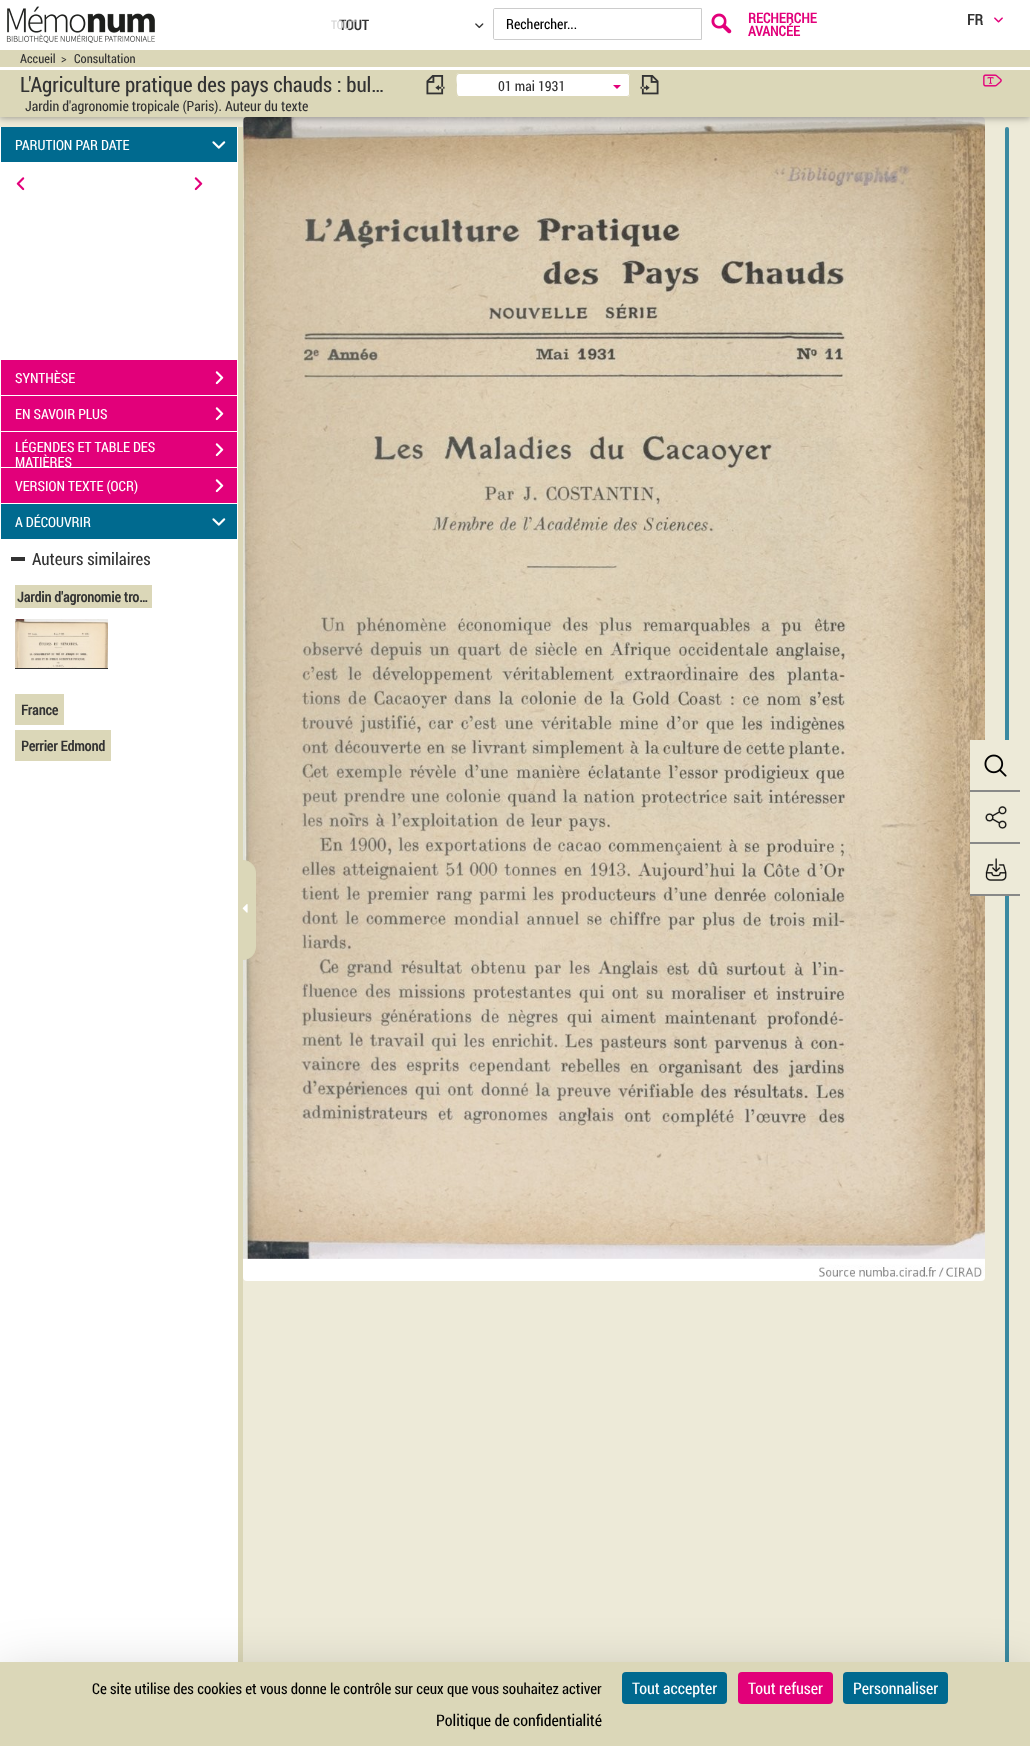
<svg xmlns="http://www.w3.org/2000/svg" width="1030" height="1746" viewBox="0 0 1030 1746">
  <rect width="100%" height="100%" fill="#edead8"/>
  <image x="243" y="117" width="742" height="1164" href="img/14.png"/>
  <rect x="1005" y="127" width="4" height="1599" rx="2" fill="#3b8aa1"/>
  <path d="M0 52h1030v67H0z" fill="#0000001f" filter="blur(5px)"/>
  <path d="M0 52h1030v67H0z" fill="#00000029" filter="blur(2px)"/>
  <path d="M0 0h1030v50H0z" fill="#fff"/>
  <image x="6" y="6" width="149" height="37" href="img/1.png"/>
  <image x="475" y="23" width="9" height="6" href="img/2.png"/>
  <path d="M495 8.5H701.5V39.5H495C494 39.5 493.5 39 493.5 38V10C493.5 9 494 8.5 495 8.5Z" fill="none" stroke="#ccc"/>
  <image x="711" y="13" width="21" height="21" href="img/3.png"/>
  <image x="994" y="17" width="9" height="6" href="img/4.png"/>
  <path d="M0 50h1030v67H0z" fill="#dbd7b8"/>
  <path d="M0 67h1030v3H0z" fill="#fff"/>
  <image x="426" y="75" width="19" height="20" href="img/5.png"/>
  <path d="M459 73H606V97H459C457.5 97 456 95.5 456 94V76C456 74.5 457.5 73 459 73Z" fill="#fff"/>
  <path d="M459 73H606V97H458C454 96 456 88 456 85C456 82 454 73 459 73ZM459 74H606V96H459C456 95 457 87 457 85C457 83 455 74 459 74Z" fill="#dbd7b8" fill-rule="evenodd"/>
  <path d="M605 73H627C628.5 73 630 74.5 630 76V94C630 95.5 628.5 97 627 97H605Z" fill="#fff"/>
  <path d="M605 73H627C628.5 73 630 74.5 630 76V94C630 95.5 628.5 97 627 97H605ZM605 74H627C628 74 629 75 629 76V94C629 95 628 96 627 96H605Z" fill="#dbd7b8" fill-rule="evenodd"/>
  <path d="M613 85H621L617 89Z" fill="#e2007a"/>
  <image x="640" y="75" width="19" height="20" href="img/6.png"/>
  <image x="983" y="74" width="19" height="13" href="img/7.png"/>
  <path d="M238 127h5v1535H238z" fill="#dbd7b8"/>
  <path d="M0 127h238v1535H0z" fill="#fff"/>
  <path d="M1 127h236v35H1z" fill="#006a8f"/>
  <image x="212" y="141" width="14" height="8" href="img/8.png"/>
  <image x="16" y="177" width="9" height="14" href="img/9.png"/>
  <image x="194" y="177" width="9" height="14" href="img/10.png"/>
  <path d="M1 360h236v35H1z" fill="#e2007a"/>
  <image x="215" y="371" width="9" height="14" href="img/11.png"/>
  <path d="M1 396h236v35H1z" fill="#e2007a"/>
  <image x="215" y="407" width="9" height="14" href="img/11.png"/>
  <path d="M1 432h236v35H1z" fill="#e2007a"/>
  <image x="215" y="443" width="9" height="14" href="img/11.png"/>
  <path d="M1 468h236v35H1z" fill="#e2007a"/>
  <image x="215" y="479" width="9" height="14" href="img/11.png"/>
  <path d="M1 504h236v35H1z" fill="#006a8f"/>
  <image x="212" y="518" width="14" height="8" href="img/8.png"/>
  <path d="M11 557h14v4H11z" fill="#333"/>
  <path d="M15 585h137v23H15z" fill="#dbd7b8"/>
  <image x="15" y="619" width="93" height="49" href="img/12.png"/>
  <path d="M15 668h93v1H15z" fill="#333"/>
  <path d="M15 694h49v31H15z" fill="#dbd7b8"/>
  <path d="M15 730h96v31H15z" fill="#dbd7b8"/>
  <path d="M243.5 860.5H243C250 860.5 255.5 866 255.5 873V947C255.5 954 250 959.5 243 959.5H243.5Z" fill="#dbd7b8" stroke="#dbd7b8"/>
  <image x="242" y="904" width="6" height="9" href="img/13.png"/>
  <path d="M970 740h39v50H970z" fill="#edead8"/>
  <image x="984" y="754" width="23" height="23" href="img/15.png"/>
  <path d="M970 790h50v2H970z" fill="#888988"/>
  <path d="M970 792h39v50H970z" fill="#edead8"/>
  <image x="985" y="806" width="22" height="23" href="img/16.png"/>
  <path d="M970 842h50v2H970z" fill="#888988"/>
  <path d="M970 844h39v50H970z" fill="#edead8"/>
  <image x="985" y="858" width="22" height="23" href="img/17.png"/>
  <path d="M970 894h50v2H970z" fill="#888988"/>
  <path d="M0 1682h1030v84H0z" fill="#00000040" filter="blur(30px)"/>
  <path d="M0 1662h1030v84H0z" fill="#dbd7b8"/>
  <rect x="622" y="1672" width="105" height="32" rx="4" fill="#00698f"/>
  <rect x="738" y="1672" width="95" height="32" rx="4" fill="#e20079"/>
  <rect x="843" y="1672" width="105" height="32" rx="4" fill="#00698f"/>
  <text x="339" y="30" font-family="Roboto Condensed" font-size="14" font-weight="bold" fill="#333">TOUT</text>
  <text x="331" y="29" font-family="Roboto Condensed" font-size="12" fill="#d3d3d3">TOUT</text>
  <text x="506" y="29" font-family="Roboto Condensed" font-size="14" fill="#000">Rechercher...</text>
  <g font-family="Roboto Condensed" font-size="14" font-weight="bold" fill="#e2007a">
    <text x="748" y="23">RECHERCHE</text>
    <text x="748" y="36">AVANCÉE</text>
  </g>
  <text x="967" y="25" font-family="Roboto Condensed" font-size="15" font-weight="bold" fill="#333">FR</text>
  <g font-family="Roboto Condensed" font-size="12.5" fill="#333">
    <text x="20" y="63">Accueil</text>
    <text x="61" y="63">&gt;</text>
    <text x="74" y="63">Consultation</text>
  </g>
  <text x="20" y="92" font-family="Roboto Condensed" font-size="21" fill="#333">L'Agriculture pratique des pays chauds : bul…</text>
  <g font-family="Roboto Condensed" font-size="14" fill="#333">
    <text x="25" y="111">Jardin d'agronomie tropicale (Paris). Auteur du texte</text>
    <text x="498" y="91">01 mai 1931</text>
  </g>
  <g font-family="Roboto Condensed" font-size="14" fill="#fff">
    <text x="15" y="150">PARUTION PAR DATE</text>
    <text x="15" y="383">SYNTHÈSE</text>
    <text x="15" y="419">EN SAVOIR PLUS</text>
    <text x="15" y="452">LÉGENDES ET TABLE DES</text>
    <text x="15" y="467">MATIÈRES</text>
    <text x="15" y="491">VERSION TEXTE (OCR)</text>
    <text x="15" y="527">A DÉCOUVRIR</text>
  </g>
  <text x="32" y="565" font-family="Roboto Condensed" font-size="17" fill="#333">Auteurs similaires</text>
  <g font-family="Roboto Condensed" font-size="14" font-weight="bold" fill="#333">
    <text x="17" y="602">Jardin d'agronomie tro…</text>
    <text x="21" y="715">France</text>
    <text x="21" y="751">Perrier Edmond</text>
  </g>
  <text x="92" y="1694" font-family="Roboto Condensed" font-size="15" fill="#000">Ce site utilise des cookies et vous donne le contrôle sur ceux que vous souhaitez activer</text>
  <g font-family="Roboto Condensed" font-size="16" fill="#fff">
    <text x="632" y="1694">Tout accepter</text>
    <text x="748" y="1694">Tout refuser</text>
    <text x="853" y="1694">Personnaliser</text>
  </g>
  <text x="436" y="1726" font-family="Roboto Condensed" font-size="16" fill="#000">Politique de confidentialité</text>
</svg>
